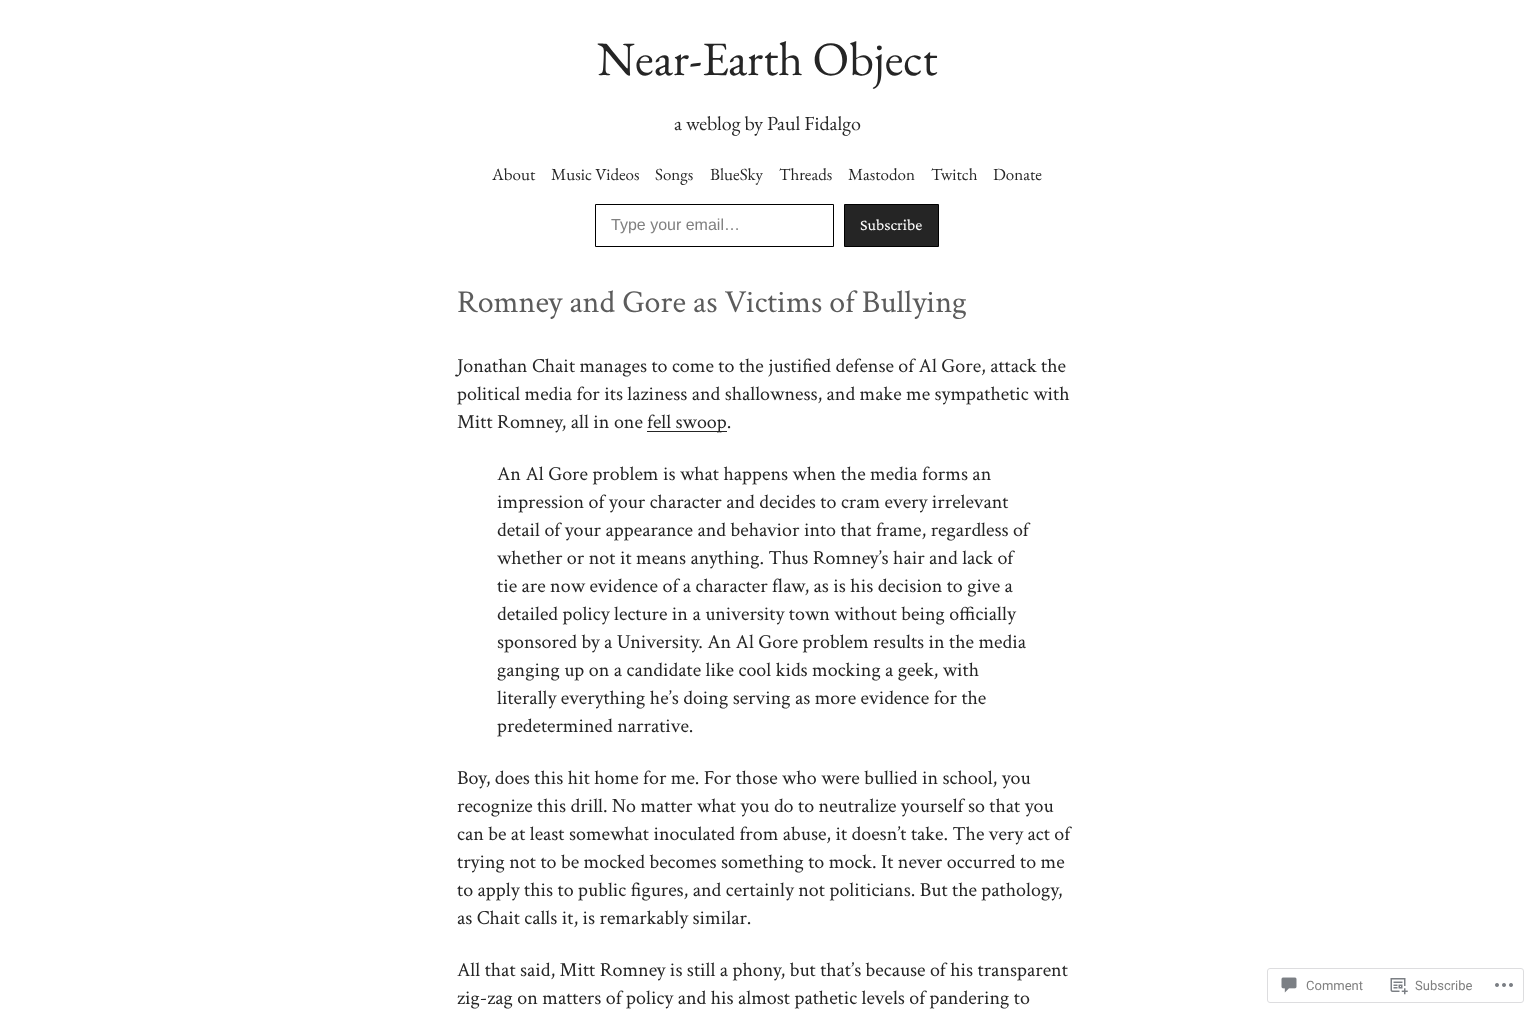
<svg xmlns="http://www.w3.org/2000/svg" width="1534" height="1013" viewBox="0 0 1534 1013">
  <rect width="100%" height="100%" fill="#fff"/>
  <path d="M595.5 204.5h238v42H595.5z" fill="none" stroke="#000"/>
  <path d="M844.5 204.5h94v42H844.5z" fill="#252525" stroke="#000"/>
  <path d="M647 431h80v1H647z" fill="#252525"/>
  <rect x="1267.5" y="968.5" width="256" height="34" rx="2.5" fill="none" stroke="#dddddf"/>
  <image x="1281" y="977" width="16" height="16" href="img/1.png"/>
  <image x="1390" y="978" width="18" height="17" href="img/2.png"/>
  <image x="1495" y="983" width="18" height="4" href="img/3.png"/>
  <text x="597" y="75" font-family="EB Garamond" font-size="48" fill="#252525">Near-Earth Object</text>
  <text x="674" y="130" font-family="EB Garamond" font-size="20" fill="#252525">a weblog by Paul Fidalgo</text>
  <g font-family="EB Garamond" font-size="17" fill="#252525">
    <text x="492" y="180">About</text>
    <text x="551" y="180">Music Videos</text>
    <text x="655" y="180">Songs</text>
    <text x="710" y="180">BlueSky</text>
    <text x="779" y="180">Threads</text>
    <text x="848" y="180">Mastodon</text>
    <text x="931" y="180">Twitch</text>
    <text x="993" y="180">Donate</text>
  </g>
  <text x="611" y="230" font-family="Liberation Sans" font-size="16" fill="#808080">Type your email…</text>
  <text x="860" y="230" font-family="Crimson Pro" font-size="16" fill="#fff">Subscribe</text>
  <text x="457" y="312" font-family="Crimson Text" font-size="32" fill="#5c5c5c">Romney and Gore as Victims of Bullying</text>
  <g font-family="Crimson Text" font-size="20" fill="#252525">
    <text x="457" y="372">Jonathan Chait manages to come to the justified defense of Al Gore, attack the</text>
    <text x="457" y="400">political media for its laziness and shallowness, and make me sympathetic with</text>
    <text x="457" y="428">Mitt Romney, all in one</text>
    <text x="647" y="428">fell swoop.</text>
    <text x="497" y="480">An Al Gore problem is what happens when the media forms an</text>
    <text x="497" y="508">impression of your character and decides to cram every irrelevant</text>
    <text x="497" y="536">detail of your appearance and behavior into that frame, regardless of</text>
    <text x="497" y="564">whether or not it means anything. Thus Romney’s hair and lack of</text>
    <text x="497" y="592">tie are now evidence of a character flaw, as is his decision to give a</text>
    <text x="497" y="620">detailed policy lecture in a university town without being officially</text>
    <text x="497" y="648">sponsored by a University. An Al Gore problem results in the media</text>
    <text x="497" y="676">ganging up on a candidate like cool kids mocking a geek, with</text>
    <text x="497" y="704">literally everything he’s doing serving as more evidence for the</text>
    <text x="497" y="732">predetermined narrative.</text>
    <text x="457" y="784">Boy, does this hit home for me. For those who were bullied in school, you</text>
    <text x="457" y="812">recognize this drill. No matter what you do to neutralize yourself so that you</text>
    <text x="457" y="840">can be at least somewhat inoculated from abuse, it doesn’t take. The very act of</text>
    <text x="457" y="868">trying not to be mocked becomes something to mock. It never occurred to me</text>
    <text x="457" y="896">to apply this to public figures, and certainly not politicians. But the pathology,</text>
    <text x="457" y="924">as Chait calls it, is remarkably similar.</text>
    <text x="457" y="976">All that said, Mitt Romney is still a phony, but that’s because of his transparent</text>
    <text x="457" y="1004">zig-zag on matters of policy and his almost pathetic levels of pandering to</text>
  </g>
  <g font-family="Roboto" font-size="13" fill="#808080">
    <text x="1306" y="990">Comment</text>
    <text x="1415" y="990">Subscribe</text>
  </g>
</svg>
